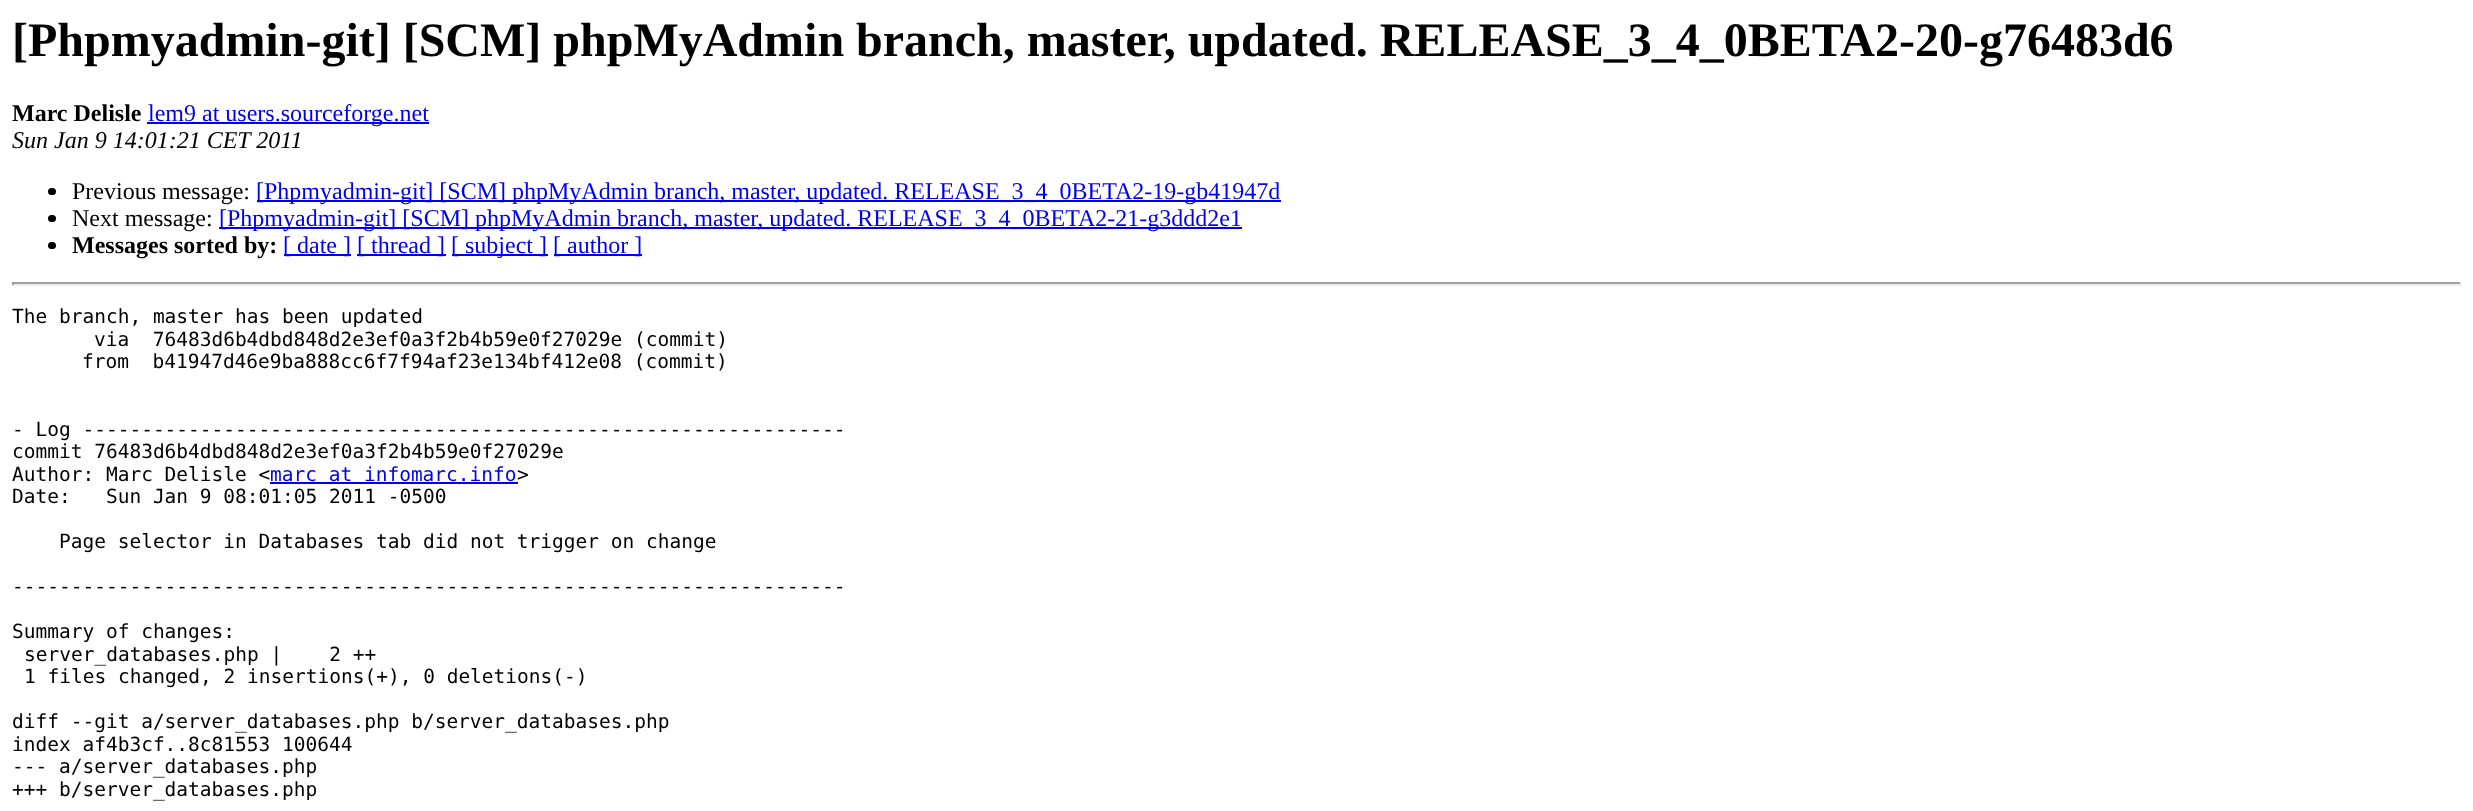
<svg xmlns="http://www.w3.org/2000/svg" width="2473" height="811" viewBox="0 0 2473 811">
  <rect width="100%" height="100%" fill="#fff"/>
  <path d="M147 122h282v2H147z" fill="#00e"/>
  <rect x="48" y="188" width="8" height="7" rx="3.5" fill="#000"/>
  <path d="M257 200h1024v2H257z" fill="#00e"/>
  <rect x="48" y="215" width="8" height="7" rx="3.5" fill="#000"/>
  <path d="M219 227h1023v2H219z" fill="#00e"/>
  <rect x="48" y="242" width="8" height="7" rx="3.5" fill="#000"/>
  <path d="M284 254h67v2H284z" fill="#00e"/>
  <path d="M357 254h89v2H357z" fill="#00e"/>
  <path d="M452 254h96v2H452z" fill="#00e"/>
  <path d="M554 254h88v2H554z" fill="#00e"/>
  <path d="M12 282h2450v2H12z" fill="#9f9f9f"/>
  <path d="M2460 282h2v3H2460z" fill="#eee"/>
  <path d="M12 284h2450v2H12z" fill="#eee"/>
  <path d="M12 282h2v3H12z" fill="#9f9f9f"/>
  <path d="M270 482h248v2H270z" fill="#00e"/>
  <text x="12" y="56" font-family="Liberation Serif" font-size="48" font-weight="bold" fill="#000">[Phpmyadmin-git] [SCM] phpMyAdmin branch, master, updated. RELEASE_3_4_0BETA2-20-g76483d6</text>
  <text x="12" y="121" font-family="Liberation Serif" font-size="24" font-weight="bold" fill="#000">Marc Delisle</text>
  <text x="148" y="121" font-family="Liberation Serif" font-size="24" fill="#00e">lem9 at users.sourceforge.net</text>
  <text x="12" y="148" font-family="Liberation Serif" font-size="24" font-style="italic" fill="#000">Sun Jan 9 14:01:21 CET 2011</text>
  <text x="72" y="199" font-family="Liberation Serif" font-size="24" fill="#000">Previous message:</text>
  <text x="256" y="199" font-family="Liberation Serif" font-size="24" fill="#00e">[Phpmyadmin-git] [SCM] phpMyAdmin branch, master, updated. RELEASE_3_4_0BETA2-19-gb41947d</text>
  <text x="72" y="226" font-family="Liberation Serif" font-size="24" fill="#000">Next message:</text>
  <text x="219" y="226" font-family="Liberation Serif" font-size="24" fill="#00e">[Phpmyadmin-git] [SCM] phpMyAdmin branch, master, updated. RELEASE_3_4_0BETA2-21-g3ddd2e1</text>
  <text x="72" y="253" font-family="Liberation Serif" font-size="24" font-weight="bold" fill="#000">Messages sorted by:</text>
  <g font-family="Liberation Serif" font-size="24" fill="#00e">
    <text x="283" y="253">[ date ]</text>
    <text x="357" y="253">[ thread ]</text>
    <text x="451" y="253">[ subject ]</text>
    <text x="553" y="253">[ author ]</text>
  </g>
  <g font-family="DejaVu Sans Mono" font-size="19.5" fill="#000">
    <text x="12" y="323">The branch, master has been updated</text>
    <text x="94" y="346" xml:space="preserve">via  76483d6b4dbd848d2e3ef0a3f2b4b59e0f27029e (commit)</text>
    <text x="82" y="368" xml:space="preserve">from  b41947d46e9ba888cc6f7f94af23e134bf412e08 (commit)</text>
    <text x="12" y="436">- Log -----------------------------------------------------------------</text>
    <text x="12" y="458">commit 76483d6b4dbd848d2e3ef0a3f2b4b59e0f27029e</text>
    <text x="12" y="481">Author: Marc Delisle &lt;</text>
  </g>
  <text x="270" y="481" font-family="DejaVu Sans Mono" font-size="19.5" fill="#00e">marc at infomarc.info</text>
  <g font-family="DejaVu Sans Mono" font-size="19.5" fill="#000">
    <text x="517" y="481">&gt;</text>
    <text x="12" y="503" xml:space="preserve">Date:   Sun Jan 9 08:01:05 2011 -0500</text>
    <text x="59" y="548">Page selector in Databases tab did not trigger on change</text>
    <text x="12" y="593">-----------------------------------------------------------------------</text>
    <text x="12" y="638">Summary of changes:</text>
    <text x="24" y="661" xml:space="preserve">server_databases.php |    2 ++</text>
    <text x="24" y="683">1 files changed, 2 insertions(+), 0 deletions(-)</text>
    <text x="12" y="728">diff --git a/server_databases.php b/server_databases.php</text>
    <text x="12" y="751">index af4b3cf..8c81553 100644</text>
    <text x="12" y="773">--- a/server_databases.php</text>
    <text x="12" y="796">+++ b/server_databases.php</text>
  </g>
</svg>
